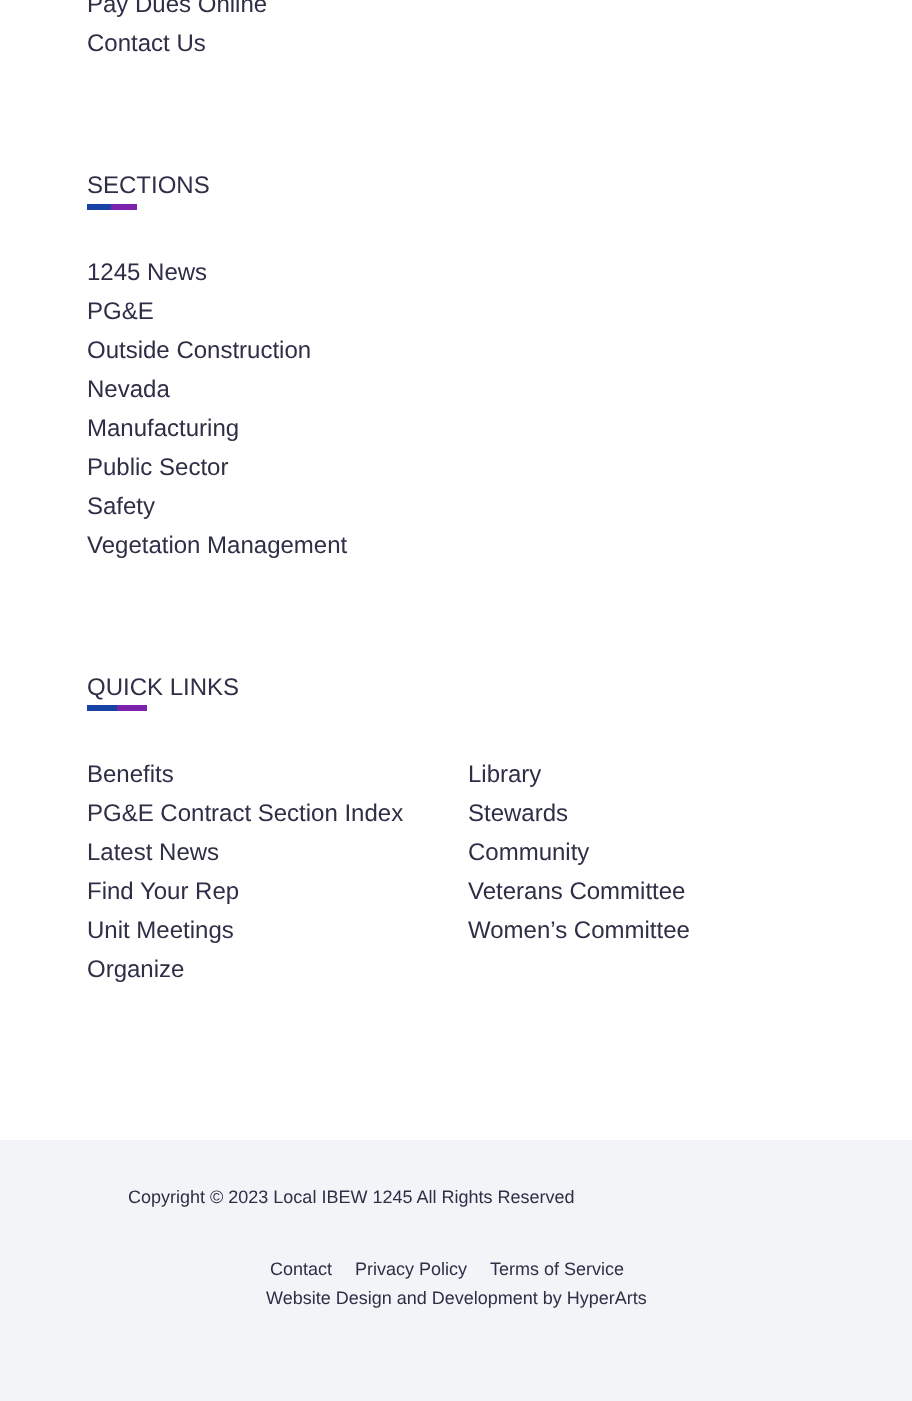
<svg xmlns="http://www.w3.org/2000/svg" width="912" height="1401" viewBox="0 0 912 1401">
  <rect width="100%" height="100%" fill="#fff"/>
  <path d="M87 204h24v6H87z" fill="#1743a6"/>
  <path d="M111 204h26v6H111z" fill="#7c22ad"/>
  <path d="M87 705h30v6H87z" fill="#1743a6"/>
  <path d="M117 705h30v6H117z" fill="#7c22ad"/>
  <path d="M0 1140h912v261H0z" fill="#f3f4f7"/>
  <g font-family="Liberation Sans" font-size="24" fill="#2e2e47">
    <text x="87" y="12">Pay Dues Online</text>
    <text x="87" y="51">Contact Us</text>
    <text x="87" y="193">SECTIONS</text>
    <text x="87" y="280">1245 News</text>
    <text x="87" y="319">PG&amp;E</text>
    <text x="87" y="358">Outside Construction</text>
    <text x="87" y="397">Nevada</text>
    <text x="87" y="436">Manufacturing</text>
    <text x="87" y="475">Public Sector</text>
    <text x="87" y="514">Safety</text>
    <text x="87" y="553">Vegetation Management</text>
    <text x="87" y="695">QUICK LINKS</text>
    <text x="87" y="782">Benefits</text>
    <text x="468" y="782">Library</text>
    <text x="87" y="821">PG&amp;E Contract Section Index</text>
    <text x="468" y="821">Stewards</text>
    <text x="87" y="860">Latest News</text>
    <text x="468" y="860">Community</text>
    <text x="87" y="899">Find Your Rep</text>
    <text x="468" y="899">Veterans Committee</text>
    <text x="87" y="938">Unit Meetings</text>
    <text x="468" y="938">Women’s Committee</text>
    <text x="87" y="977">Organize</text>
  </g>
  <g font-family="Liberation Sans" font-size="18" fill="#2e2e47">
    <text x="128" y="1203">Copyright © 2023 Local IBEW 1245 All Rights Reserved</text>
    <text x="270" y="1275">Contact</text>
    <text x="355" y="1275">Privacy Policy</text>
    <text x="490" y="1275">Terms of Service</text>
    <text x="266" y="1304">Website Design and Development by HyperArts</text>
  </g>
</svg>
